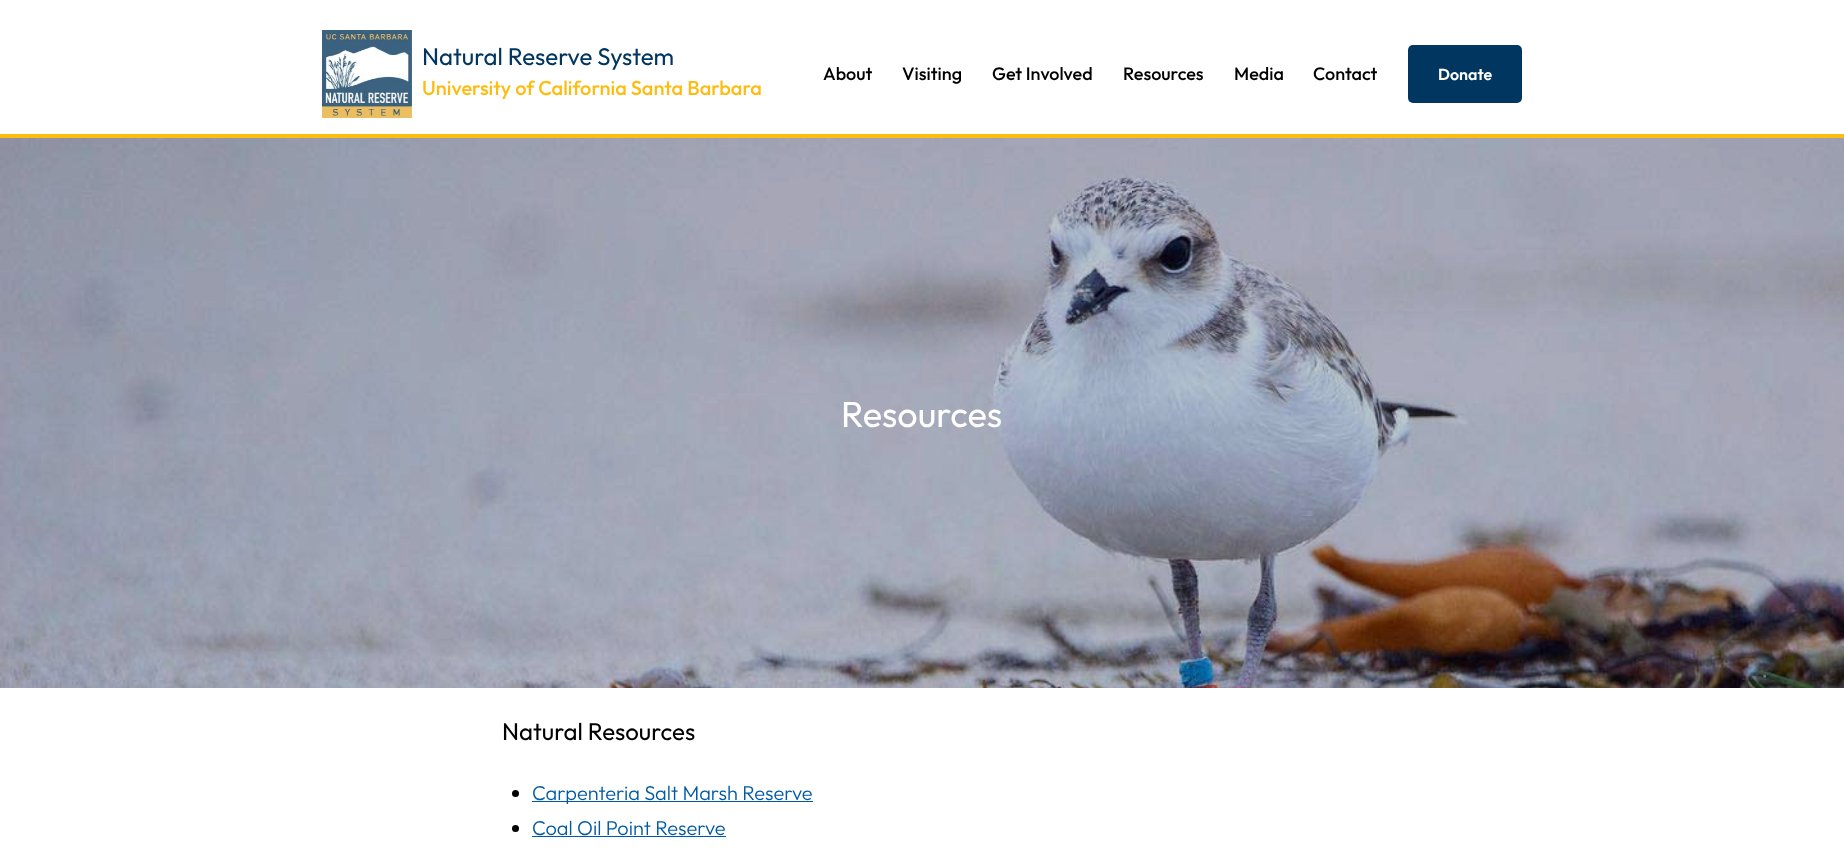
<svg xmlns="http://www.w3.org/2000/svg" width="1844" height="850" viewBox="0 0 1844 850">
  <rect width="100%" height="100%" fill="#fff"/>
  <path d="M0 134h1844v4H0z" fill="#febc11"/>
  <image x="322" y="30" width="90" height="88" href="img/1.png"/>
  <rect x="1408" y="45" width="114" height="58" rx="5" fill="#003660"/>
  <image x="0" y="138" width="1844" height="550" href="img/2.png"/>
  <circle cx="515.5" cy="793.5" r="3.5" fill="#000"/>
  <path d="M532 801h281v1H532z" fill="#005aa3"/>
  <circle cx="515.5" cy="828.5" r="3.5" fill="#000"/>
  <path d="M532 836h194v1H532z" fill="#005aa3"/>
  <text x="422" y="65" font-family="Outfit" font-size="24" fill="#003660">Natural Reserve System</text>
  <text x="422" y="95" font-family="Outfit" font-size="20" font-weight="500" fill="#febc11">University of California Santa Barbara</text>
  <g font-family="Outfit" font-size="18" font-weight="500" fill="#000">
    <text x="823" y="80">About</text>
    <text x="902" y="80">Visiting</text>
    <text x="992" y="80">Get Involved</text>
    <text x="1123" y="80">Resources</text>
    <text x="1234" y="80">Media</text>
    <text x="1313" y="80">Contact</text>
  </g>
  <text x="1438" y="80" font-family="Outfit" font-size="16" font-weight="600" fill="#fff">Donate</text>
  <text x="841" y="427" font-family="Outfit" font-size="36" fill="#fff">Resources</text>
  <text x="502" y="740" font-family="Outfit" font-size="24" fill="#000">Natural Resources</text>
  <g font-family="Outfit" font-size="20" font-weight="300" fill="#005aa3">
    <text x="532" y="800">Carpenteria Salt Marsh Reserve</text>
    <text x="532" y="835">Coal Oil Point Reserve</text>
  </g>
</svg>
